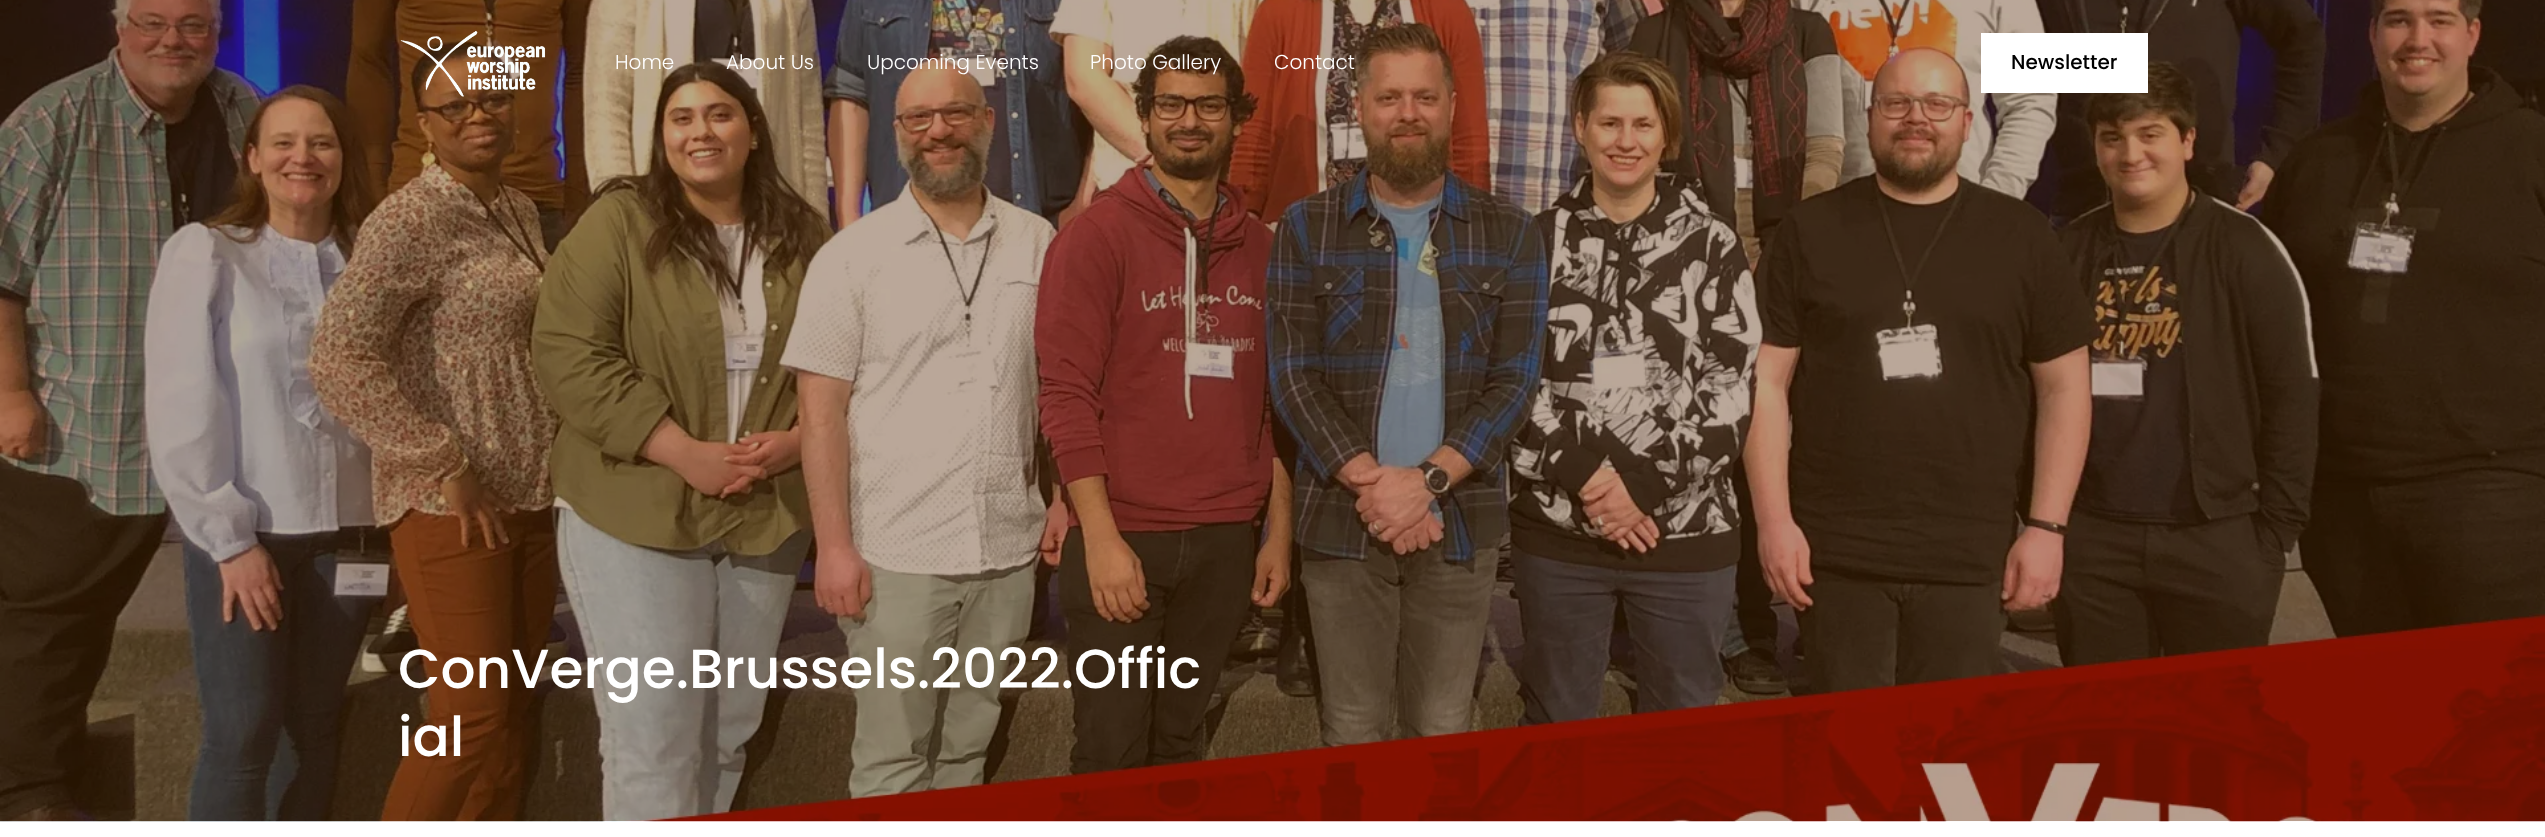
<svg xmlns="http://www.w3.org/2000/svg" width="2545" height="837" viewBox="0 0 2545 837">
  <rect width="100%" height="100%" fill="#fff"/>
  <image x="0" y="0" width="2545" height="822" href="img/2.png"/>
  <image x="400" y="31" width="146" height="66" href="img/1.png"/>
  <path d="M1981 33h167v60H1981z" fill="#fff"/>
  <g font-family="Poppins" font-size="20" font-weight="300" fill="#fff">
    <text x="615" y="69">Home</text>
    <text x="726" y="69">About Us</text>
    <text x="867" y="69">Upcoming Events</text>
    <text x="1090" y="69">Photo Gallery</text>
    <text x="1274" y="69">Contact</text>
  </g>
  <text x="2011" y="69" font-family="Poppins" font-size="20" font-weight="500" fill="#000">Newsletter</text>
  <g font-family="Poppins" font-size="55" font-weight="500" fill="#fff">
    <text x="398" y="688">ConVerge.Brussels.2022.Offic</text>
    <text x="398" y="756">ial</text>
  </g>
</svg>
